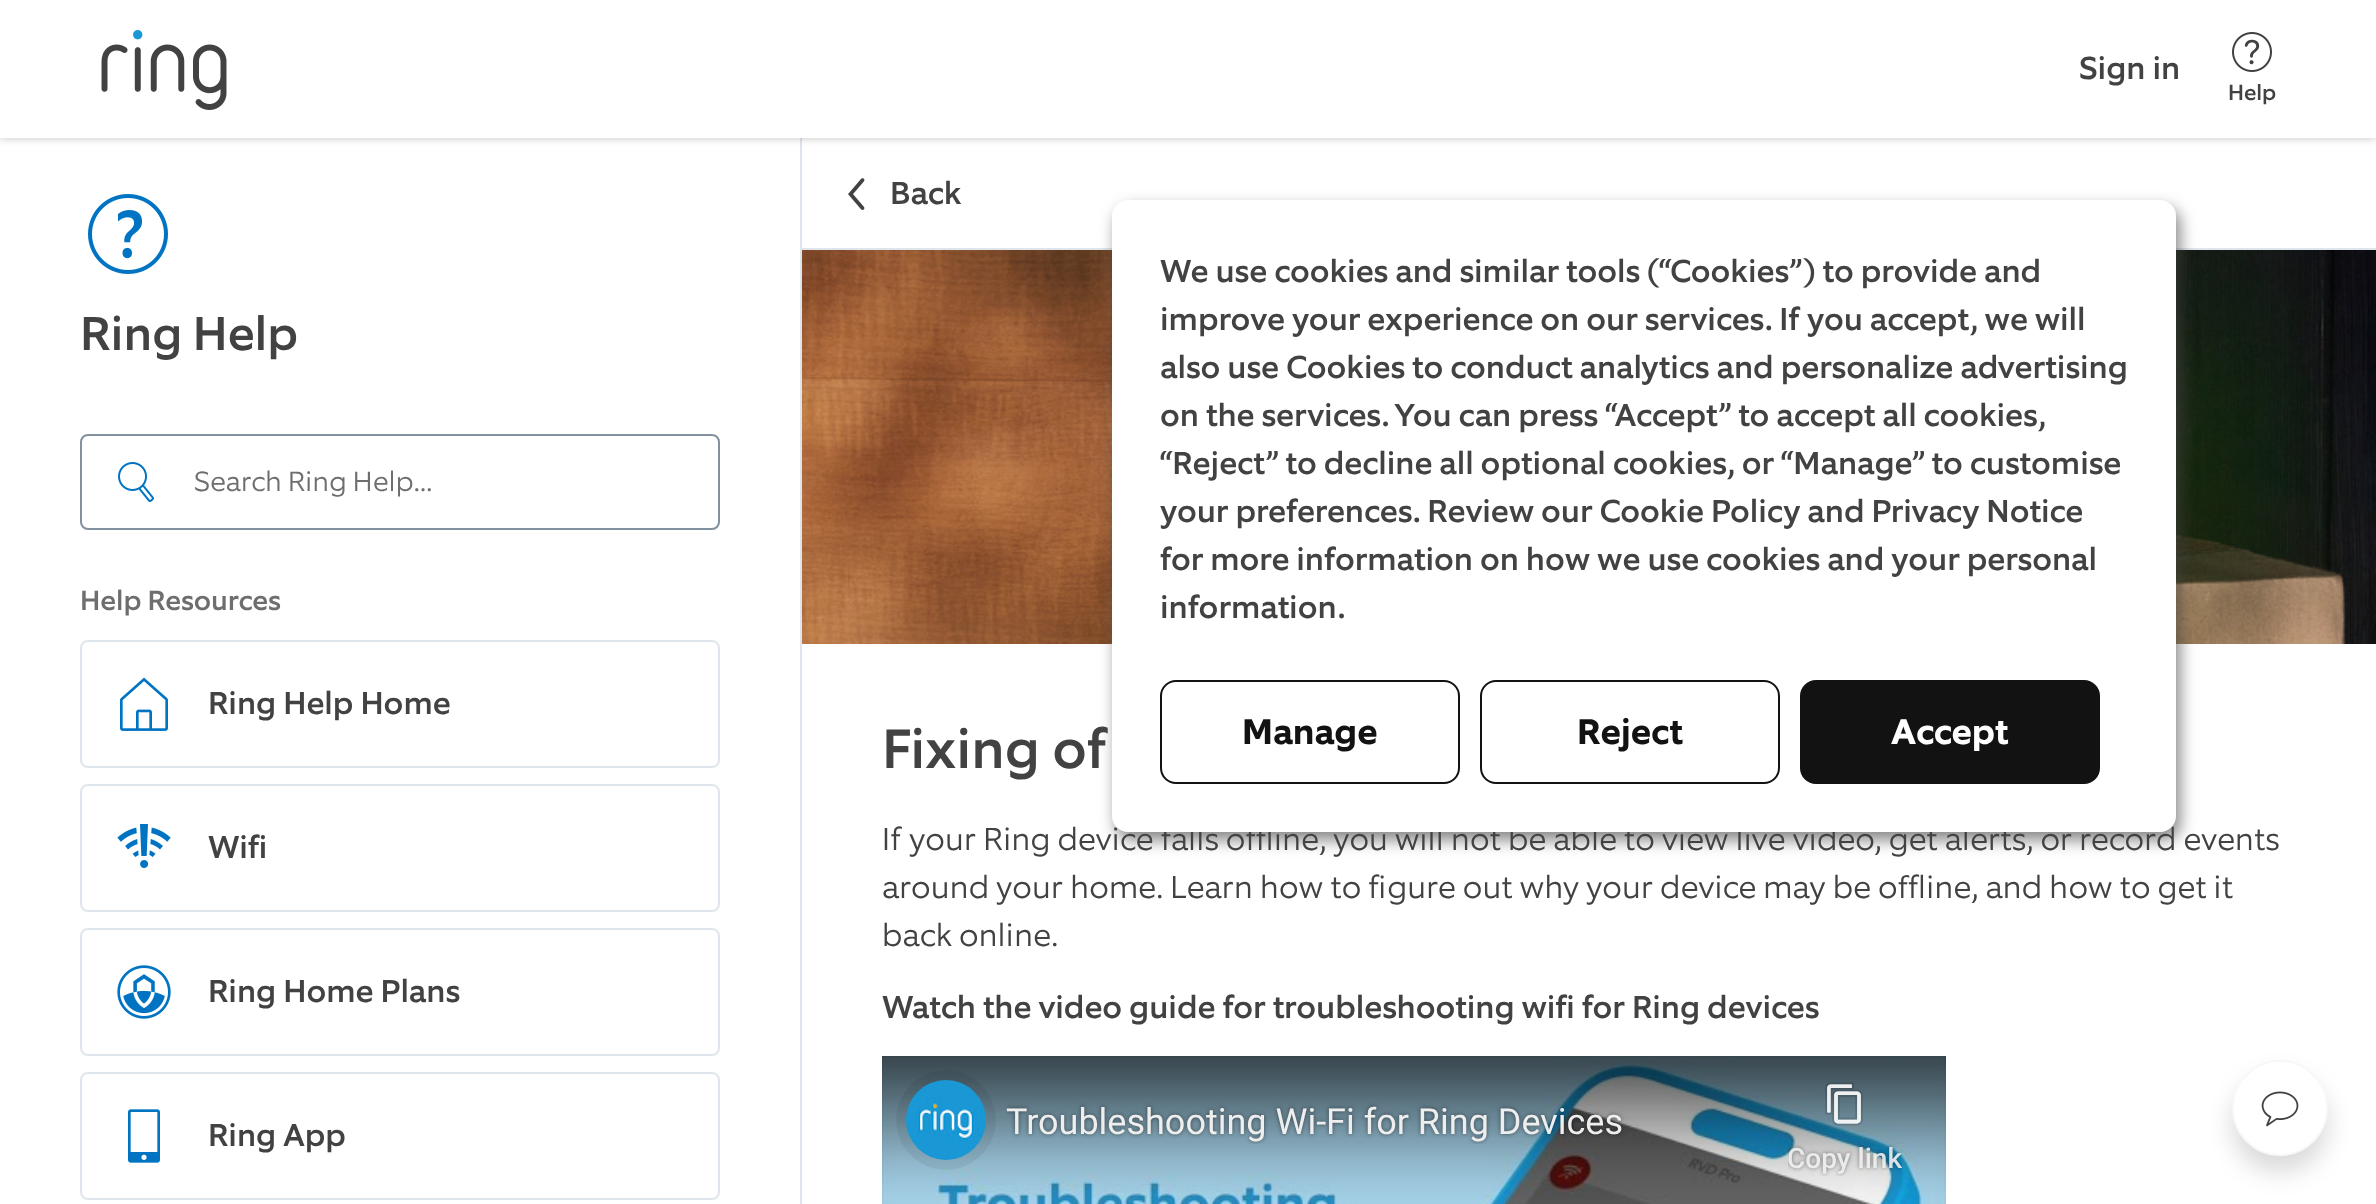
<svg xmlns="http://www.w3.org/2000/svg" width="2376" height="1204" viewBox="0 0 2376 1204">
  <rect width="100%" height="100%" fill="#fff"/>
  <path d="M800 138h2v1066H800z" fill="#dee5ec"/>
  <path d="M0 2h2376v136H0z" fill="#00000040" filter="blur(4px)"/>
  <path d="M0 0h2376v138H0z" fill="#fff"/>
  <image x="101" y="30" width="126" height="80" href="img/1.png"/>
  <image x="2232" y="32" width="40" height="40" href="img/2.png"/>
  <image x="88" y="194" width="80" height="80" href="img/3.png"/>
  <rect x="81" y="435" width="638" height="94" rx="7" fill="none" stroke="#81919f" stroke-width="2"/>
  <image x="118" y="462" width="36" height="40" href="img/4.png"/>
  <rect x="81" y="641" width="638" height="126" rx="7" fill="none" stroke="#dee5ec" stroke-width="2"/>
  <image x="120" y="677" width="48" height="54" href="img/5.png"/>
  <rect x="81" y="785" width="638" height="126" rx="7" fill="none" stroke="#dee5ec" stroke-width="2"/>
  <image x="117" y="824" width="54" height="44" href="img/6.png"/>
  <rect x="81" y="929" width="638" height="126" rx="7" fill="none" stroke="#dee5ec" stroke-width="2"/>
  <image x="117" y="965" width="54" height="54" href="img/7.png"/>
  <rect x="81" y="1073" width="638" height="126" rx="7" fill="none" stroke="#dee5ec" stroke-width="2"/>
  <image x="128" y="1109" width="32" height="54" href="img/8.png"/>
  <path d="M802 248h1574v2H802z" fill="#dee5ec"/>
  <image x="848" y="178" width="17" height="32" href="img/9.png"/>
  <image x="802" y="250" width="1574" height="394" href="img/10.png"/>
  <image x="882" y="1056" width="1064" height="148" href="img/11.png"/>
  <rect x="2232" y="1076" width="96" height="96" rx="48" fill="#00000026" filter="blur(12px)"/>
  <circle cx="2280" cy="1108" r="47" fill="#fff" stroke="#f6f8fa" stroke-width="2"/>
  <image x="2261" y="1091" width="38" height="36" href="img/12.png"/>
  <rect x="1116" y="208" width="1064" height="632" rx="16" fill="#424242a6" filter="blur(8px)"/>
  <text x="2079" y="79" font-family="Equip" font-size="32" font-weight="500" fill="#424242">Sign in</text>
  <text x="2228" y="100" font-family="Equip" font-size="22" font-weight="500" fill="#424242">Help</text>
  <text x="80" y="350" font-family="Equip" font-size="48" font-weight="500" fill="#424242">Ring Help</text>
  <text x="194" y="491" font-family="Equip" font-size="28" font-weight="300" fill="#6e6e6e">Search Ring Help...</text>
  <text x="80" y="610" font-family="Equip" font-size="28" font-weight="500" fill="#6e6e6e">Help Resources</text>
  <g font-family="Equip" font-size="32" font-weight="500" fill="#424242">
    <text x="208" y="714">Ring Help Home</text>
    <text x="208" y="858">Wifi</text>
    <text x="208" y="1002">Ring Home Plans</text>
    <text x="208" y="1146">Ring App</text>
    <text x="890" y="204">Back</text>
  </g>
  <text x="882" y="768" font-family="Equip" font-size="56" font-weight="500" fill="#424242">Fixing of</text>
  <g font-family="Equip" font-size="32" font-weight="300" fill="#424242">
    <text x="882" y="850">If your Ring device falls offline, you will not be able to view live video, get alerts, or record events</text>
    <text x="882" y="898">around your home. Learn how to figure out why your device may be offline, and how to get it</text>
    <text x="882" y="946">back online.</text>
  </g>
  <text x="882" y="1018" font-family="Equip" font-size="32" font-weight="500" fill="#424242">Watch the video guide for troubleshooting wifi for Ring devices</text>
  <rect x="1112" y="200" width="1064" height="632" rx="16" fill="#fff"/>
  <g font-family="Equip" font-size="32" font-weight="500" fill="#424242">
    <text x="1160" y="282">We use cookies and similar tools (“Cookies”) to provide and</text>
    <text x="1160" y="330">improve your experience on our services. If you accept, we will</text>
    <text x="1160" y="378">also use Cookies to conduct analytics and personalize advertising</text>
    <text x="1160" y="426">on the services. You can press “Accept” to accept all cookies,</text>
    <text x="1160" y="474">“Reject” to decline all optional cookies, or “Manage” to customise</text>
    <text x="1160" y="522">your preferences. Review our Cookie Policy and Privacy Notice</text>
    <text x="1160" y="570">for more information on how we use cookies and your personal</text>
    <text x="1160" y="618">information.</text>
  </g>
  <rect x="1161" y="681" width="298" height="102" rx="15" fill="none" stroke="#121212" stroke-width="2"/>
  <text x="1242" y="744" font-family="Equip" font-size="36" font-weight="bold" fill="#121212">Manage</text>
  <rect x="1481" y="681" width="298" height="102" rx="15" fill="none" stroke="#121212" stroke-width="2"/>
  <text x="1577" y="744" font-family="Equip" font-size="36" font-weight="bold" fill="#121212">Reject</text>
  <rect x="1800" y="680" width="300" height="104" rx="16" fill="#121212"/>
  <text x="1891" y="744" font-family="Equip" font-size="36" font-weight="bold" fill="#fff">Accept</text>
</svg>
